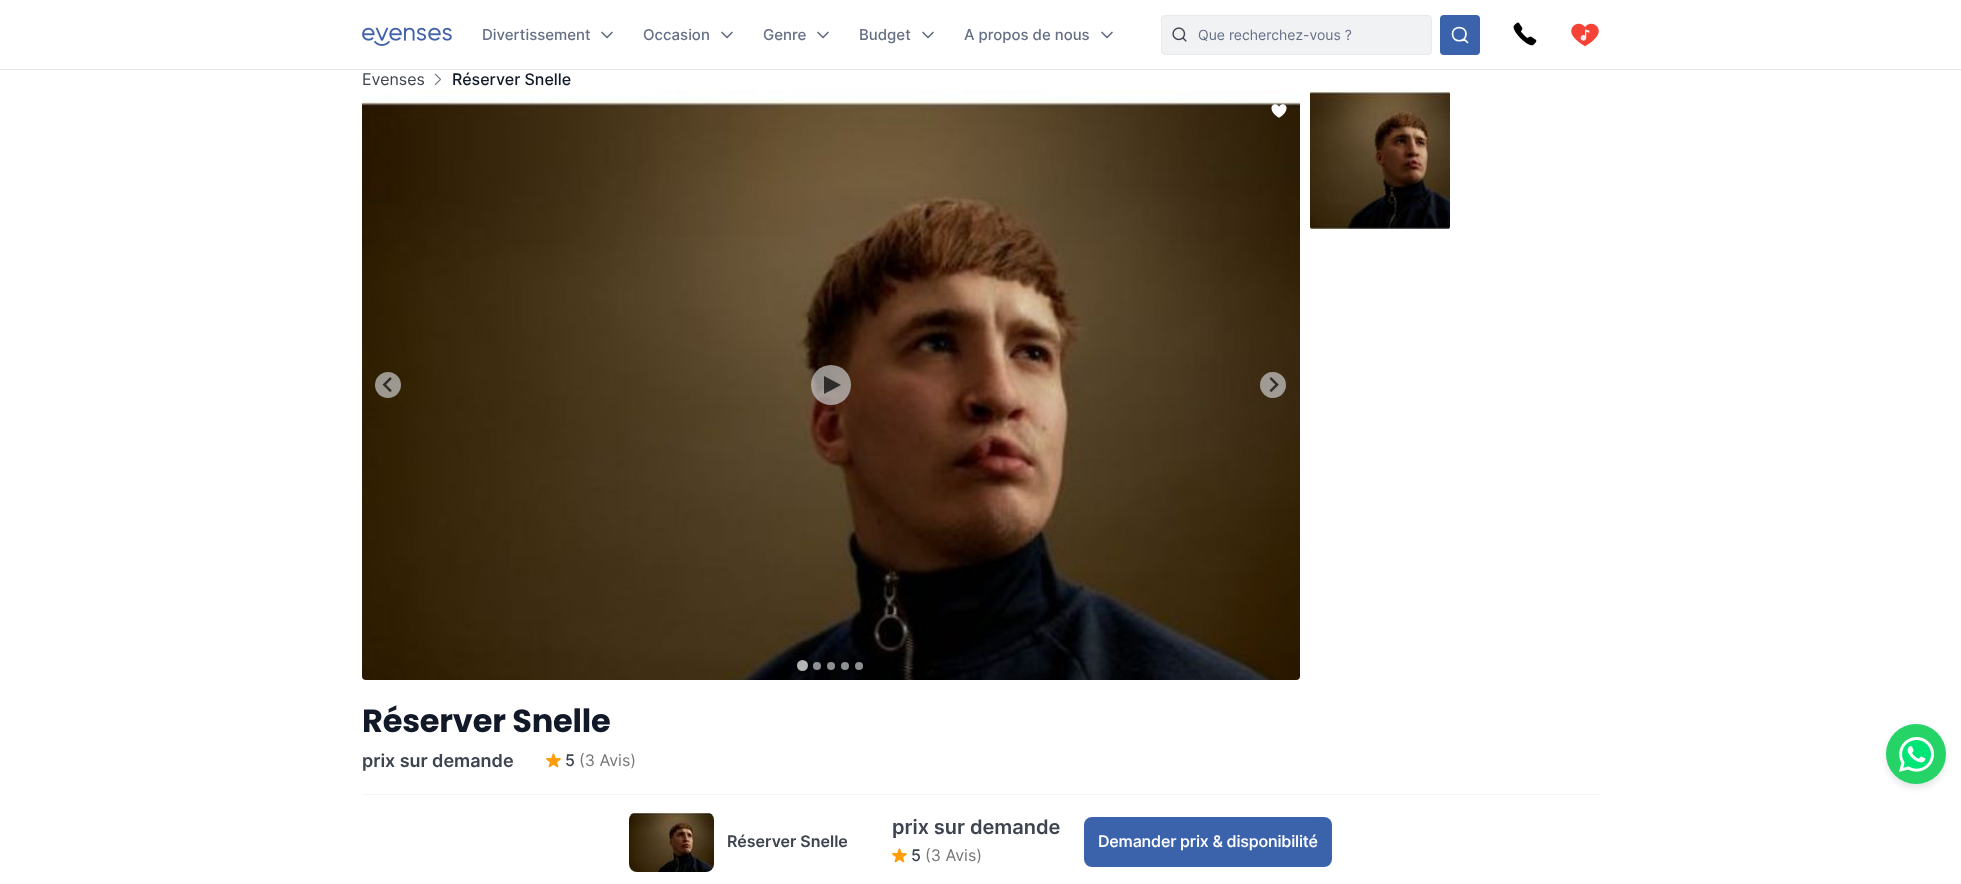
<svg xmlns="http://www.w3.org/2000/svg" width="1961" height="884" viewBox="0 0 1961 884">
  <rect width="100%" height="100%" fill="#fff"/>
  <path d="M0 69h1961v1H0z" fill="#e9e6ec"/>
  <image x="362" y="27" width="90" height="19" href="img/1.png"/>
  <path d="M602 32.5L607 37.5L612 32.5" fill="none" stroke="#667085" stroke-width="1.7" stroke-linecap="round" stroke-linejoin="round"/>
  <path d="M722 32.5L727 37.5L732 32.5" fill="none" stroke="#667085" stroke-width="1.7" stroke-linecap="round" stroke-linejoin="round"/>
  <path d="M818 32.5L823 37.5L828 32.5" fill="none" stroke="#667085" stroke-width="1.7" stroke-linecap="round" stroke-linejoin="round"/>
  <path d="M923 32.5L928 37.5L933 32.5" fill="none" stroke="#667085" stroke-width="1.7" stroke-linecap="round" stroke-linejoin="round"/>
  <path d="M1102 32.5L1107 37.5L1112 32.5" fill="none" stroke="#667085" stroke-width="1.7" stroke-linecap="round" stroke-linejoin="round"/>
  <rect x="1161.5" y="15.5" width="270" height="39" rx="3.5" fill="#f1f2f4" stroke="#e8e9ec"/>
  <image x="1172" y="27" width="15" height="15" href="img/2.png"/>
  <rect x="1440" y="15" width="40" height="40" rx="4" fill="#3b63ac"/>
  <path d="M1467.5 42.5L1464 39M1466 34C1466 43 1452.5 43 1452.5 34C1452.5 25.5 1466 25.5 1466 34Z" fill="none" stroke="#fff" stroke-width="1.7" stroke-linecap="round" stroke-linejoin="round"/>
  <image x="1513" y="22" width="24" height="24" href="img/3.png"/>
  <image x="1571" y="23" width="28" height="24" href="img/4.png"/>
  <image x="434" y="73" width="7" height="13" href="img/5.png"/>
  <image x="362" y="90" width="938" height="590" href="img/6.png"/>
  <circle cx="388" cy="385" r="13" fill="#ccccccb3"/>
  <image x="382" y="377" width="10" height="15" href="img/7.png"/>
  <circle cx="1273" cy="385" r="13" fill="#ccccccb3"/>
  <image x="1269" y="377" width="10" height="16" href="img/8.png"/>
  <circle cx="802.5" cy="665.5" r="5.5" fill="#ffffffb3"/>
  <circle cx="817" cy="666" r="4" fill="#ccccccb3"/>
  <circle cx="831" cy="666" r="4" fill="#ccccccb3"/>
  <circle cx="845" cy="666" r="4" fill="#8f9191"/>
  <circle cx="859" cy="666" r="4" fill="#ccccccb3"/>
  <circle cx="831" cy="385" r="20" fill="#ccccccb3"/>
  <path d="M824 394V376L841 385Z" fill="#000000b3"/>
  <image x="1271" y="104" width="16" height="14" href="img/9.png"/>
  <image x="1310" y="90" width="140" height="140" href="img/10.png"/>
  <path d="M362 794h1238v1H362z" fill="#f5f5f5"/>
  <image x="546" y="753" width="15" height="15" href="img/11.png"/>
  <image x="629" y="812" width="85" height="60" href="img/12.png"/>
  <image x="892" y="848" width="15" height="15" href="img/11.png"/>
  <rect x="1084" y="817" width="248" height="50" rx="8" fill="#3b63ac"/>
  <rect x="1886" y="728" width="60" height="60" rx="30" fill="#0000001a" filter="blur(3px)"/>
  <circle cx="1916" cy="754" r="30" fill="#25d366"/>
  <image x="1899" y="737" width="35" height="35" href="img/13.png"/>
  <g font-family="Inter" font-size="15" font-weight="500" fill="#667085">
    <text x="482" y="40">Divertissement</text>
    <text x="643" y="40">Occasion</text>
    <text x="763" y="40">Genre</text>
    <text x="859" y="40">Budget</text>
    <text x="964" y="40">A propos de nous</text>
  </g>
  <text x="1198" y="40" font-family="Inter" font-size="14" fill="#667085">Que recherchez-vous ?</text>
  <text x="362" y="85" font-family="Inter" font-size="16" fill="#3d434f">Evenses</text>
  <text x="452" y="85" font-family="Inter" font-size="16" font-weight="500" fill="#111827">Réserver Snelle</text>
  <text x="362" y="732" font-family="Poppins" font-size="32" font-weight="bold" letter-spacing="-0.2" fill="#111827">Réserver Snelle</text>
  <text x="362" y="767" font-family="Inter" font-size="18" font-weight="600" fill="#3d434f">prix sur demande</text>
  <text x="565" y="766" font-family="Inter" font-size="16" font-weight="500" fill="#3d434f">5</text>
  <text x="579" y="766" font-family="Inter" font-size="16" fill="#777">(3 Avis)</text>
  <text x="727" y="847" font-family="Inter" font-size="16" font-weight="600" fill="#3d434f">Réserver Snelle</text>
  <text x="892" y="834" font-family="Inter" font-size="20" font-weight="600" fill="#3d434f">prix sur demande</text>
  <text x="911" y="861" font-family="Inter" font-size="16" font-weight="500" fill="#3d434f">5</text>
  <text x="925" y="861" font-family="Inter" font-size="16" fill="#777">(3 Avis)</text>
  <text x="1098" y="847" font-family="'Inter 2'" font-size="16" font-weight="500" letter-spacing="-0.2" fill="#fff">Demander prix &amp; disponibilité</text>
</svg>
